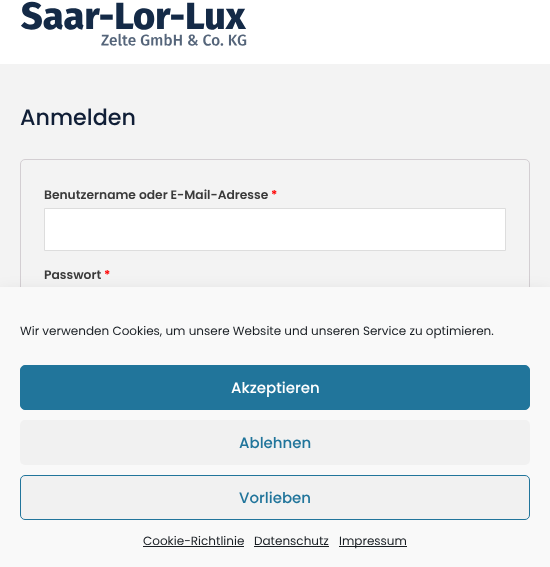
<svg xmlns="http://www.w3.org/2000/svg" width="550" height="567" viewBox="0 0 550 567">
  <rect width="100%" height="100%" fill="#f3f3f3"/>
  <path d="M0 0h550v64H0z" fill="#fff"/>
  <image x="21" y="1" width="226" height="45" href="img/1.png"/>
  <rect x="20.5" y="159.5" width="509" height="331" rx="4.5" fill="none" stroke="#d3ced2"/>
  <path d="M44.5 208.5h461v42H44.5z" fill="#fff" stroke="#ddd"/>
  <path d="M0 297h550v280H0z" fill="#00000030" filter="blur(10px)"/>
  <path d="M0 287h550v280H0z" fill="#f9f9f9"/>
  <rect x="20.5" y="365.5" width="509" height="44" rx="4.5" fill="#21759b" stroke="#21759b"/>
  <rect x="20" y="420" width="510" height="45" rx="5" fill="#f1f1f1"/>
  <rect x="20.5" y="475.5" width="509" height="44" rx="4.5" fill="#f1f1f1" stroke="#21759b"/>
  <path d="M143 546h101v1H143z" fill="#191e23"/>
  <path d="M254 546h75v1H254z" fill="#191e23"/>
  <path d="M339 546h68v1H339z" fill="#191e23"/>
  <text x="20" y="125" font-family="Poppins" font-size="22.25" font-weight="500" fill="#101e36">Anmelden</text>
  <text x="44" y="199" font-family="Poppins" font-size="12.3" font-weight="600" fill="#3a3a3a">Benutzername oder E-Mail-Adresse</text>
  <text x="271" y="199" font-family="Poppins" font-size="12.3" font-weight="600" fill="#f00">*</text>
  <text x="44" y="279" font-family="Poppins" font-size="12.3" font-weight="600" fill="#3a3a3a">Passwort</text>
  <text x="104" y="279" font-family="Poppins" font-size="12.3" font-weight="600" fill="#f00">*</text>
  <text x="20" y="335" font-family="Poppins" font-size="12" fill="#191e23">Wir verwenden Cookies, um unsere Website und unseren Service zu optimieren.</text>
  <text x="231" y="393" font-family="Poppins" font-size="15" font-weight="500" fill="#fff">Akzeptieren</text>
  <g font-family="Poppins" font-size="15" font-weight="500" fill="#21759b">
    <text x="239" y="448">Ablehnen</text>
    <text x="239" y="503">Vorlieben</text>
  </g>
  <g font-family="Poppins" font-size="12" fill="#191e23">
    <text x="143" y="545">Cookie-Richtlinie</text>
    <text x="254" y="545">Datenschutz</text>
    <text x="339" y="545">Impressum</text>
  </g>
</svg>
